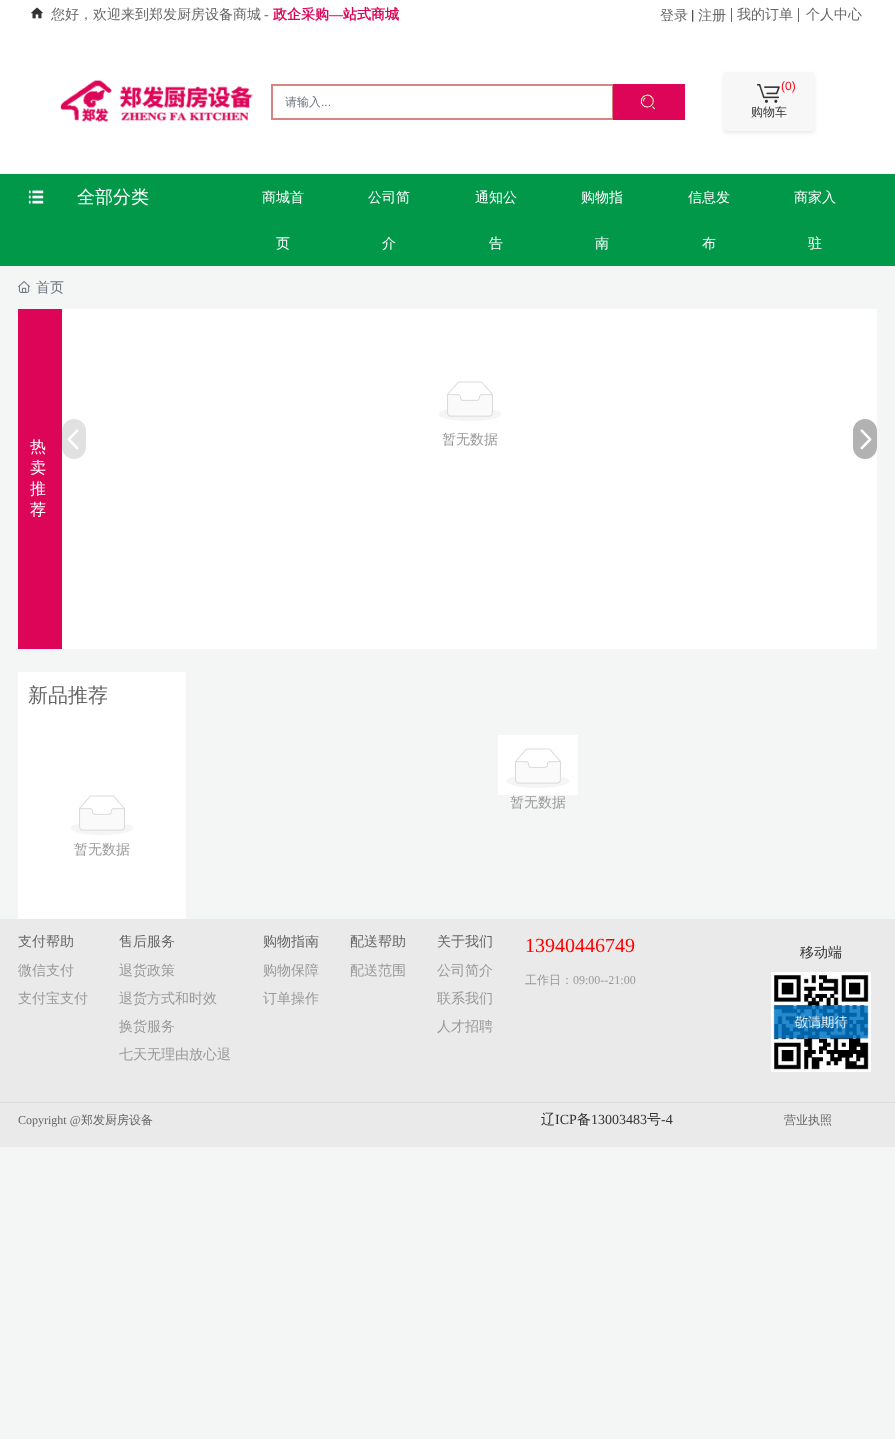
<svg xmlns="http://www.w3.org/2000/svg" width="895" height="1439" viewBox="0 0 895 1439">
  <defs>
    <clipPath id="clip1"><path d="M294.5 92H598C599 92 600 93 600 94V109C600 110 599 111 598 111H294.5C289.5 111 285 106.5 285 101.5C285 96.5 289.5 92 294.5 92Z"/></clipPath>
    <clipPath id="clip2"><path d="M18 935h101v14H18z"/></clipPath>
    <clipPath id="clip3"><path d="M119 935h144v14H119z"/></clipPath>
    <clipPath id="clip4"><path d="M263 935h87v14H263z"/></clipPath>
    <clipPath id="clip5"><path d="M350 935h87v14H350z"/></clipPath>
    <clipPath id="clip6"><path d="M437 935h88v14H437z"/></clipPath>
  </defs>
  <rect width="100%" height="100%" fill="#f4f5f5"/>
  <path d="M0 0h895v174H0z" fill="#fff"/>
  <image x="31" y="7" width="12" height="12" href="img/1.png"/>
  <path d="M731 8h1v14H731z" fill="#666"/>
  <path d="M798 8h1v14H798z" fill="#666"/>
  <image x="60" y="80" width="193" height="42" href="img/2.png"/>
  <path d="M272 85h341v34H272z" fill="none" stroke="#d98480" stroke-width="2"/>
  <path d="M613 84h72v36H613z" fill="#dd0558"/>
  <image x="640" y="94" width="15" height="16" href="img/3.png"/>
  <rect x="724" y="74" width="90" height="59" rx="2" fill="#cfcfcf80" filter="blur(2px)"/>
  <rect x="724" y="72" width="90" height="59" rx="2" fill="#f7f7f7"/>
  <image x="757" y="84" width="23" height="19" href="img/4.png"/>
  <path d="M0 174h895v92H0z" fill="#019849"/>
  <image x="28" y="190" width="16" height="14" href="img/5.png"/>
  <image x="18" y="281" width="12" height="12" href="img/6.png"/>
  <path d="M62 309h815v340H62z" fill="#fff"/>
  <path d="M18 309h44v340H18z" fill="#dd0558"/>
  <image x="62" y="419" width="24" height="40" href="img/7.png"/>
  <image x="439" y="381" width="62" height="40" href="img/8.png"/>
  <image x="853" y="419" width="24" height="40" href="img/9.png"/>
  <path d="M18 672h168v247H18z" fill="#fff"/>
  <image x="71" y="795" width="62" height="40" href="img/8.png"/>
  <image x="498" y="735" width="80" height="60" href="img/10.png"/>
  <path d="M0 919h895v183H0z" fill="#eaeaea"/>
  <path d="M0 1102h895v1H0z" fill="#dedede"/>
  <image x="771" y="972" width="100" height="100" href="img/11.png"/>
  <path d="M0 1103h895v44H0z" fill="#eaeaea"/>
  <text x="51" y="19" font-family="WenQuanYi Zen Hei" font-size="14" font-weight="500" fill="#666">您好，欢迎来到郑发厨房设备商城</text>
  <text x="264" y="19" font-family="Liberation Serif" font-size="14" fill="#666">-</text>
  <text x="273" y="19" font-family="WenQuanYi Zen Hei" font-size="14" font-weight="bold" fill="#dd0558">政企采购</text>
  <text x="329" y="19" font-family="Liberation Serif" font-size="14" font-weight="bold" fill="#dd0558">—</text>
  <text x="343" y="19" font-family="WenQuanYi Zen Hei" font-size="14" font-weight="bold" fill="#dd0558">站式商城</text>
  <text x="660" y="20" font-family="WenQuanYi Zen Hei" font-size="14" font-weight="500" fill="#666">登录</text>
  <text x="691" y="20" font-family="Roboto" font-size="14" fill="#212529">|</text>
  <g font-family="WenQuanYi Zen Hei" font-size="14" font-weight="500" fill="#666">
    <text x="698" y="20">注册</text>
    <text x="737" y="19">我的订单</text>
    <text x="806" y="19">个人中心</text>
  </g>
  <g clip-path="url(#clip1)">
    <text x="285" y="106" font-family="WenQuanYi Zen Hei" font-size="12" font-weight="500" fill="#6c757d">请输入</text>
  </g>
  <text x="321" y="106" font-family="Liberation Sans" font-size="12" fill="#6c757d">...</text>
  <text x="781" y="90" font-family="Liberation Sans" font-size="12" fill="#ff041a">(0)</text>
  <text x="751" y="116" font-family="WenQuanYi Zen Hei" font-size="12" font-weight="500" fill="#333">购物车</text>
  <text x="77" y="203" font-family="WenQuanYi Zen Hei" font-size="18" font-weight="500" fill="#fff">全部分类</text>
  <g font-family="WenQuanYi Zen Hei" font-size="14" font-weight="500" fill="#fff">
    <text x="262" y="202">商城首</text>
    <text x="276" y="248">页</text>
    <text x="368" y="202">公司简</text>
    <text x="382" y="248">介</text>
    <text x="475" y="202">通知公</text>
    <text x="489" y="248">告</text>
    <text x="581" y="202">购物指</text>
    <text x="595" y="248">南</text>
    <text x="688" y="202">信息发</text>
    <text x="702" y="248">布</text>
    <text x="794" y="202">商家入</text>
    <text x="808" y="248">驻</text>
  </g>
  <text x="36" y="292" font-family="WenQuanYi Zen Hei" font-size="14" font-weight="500" fill="#6c757d">首页</text>
  <g font-family="WenQuanYi Zen Hei" font-size="16" font-weight="500" fill="#fff">
    <text x="30" y="452">热</text>
    <text x="30" y="473">卖</text>
    <text x="30" y="494">推</text>
    <text x="30" y="515">荐</text>
  </g>
  <text x="442" y="444" font-family="WenQuanYi Zen Hei" font-size="14" font-weight="500" fill="#999">暂无数据</text>
  <text x="28" y="702" font-family="WenQuanYi Zen Hei" font-size="20" font-weight="500" fill="#666">新品推荐</text>
  <g font-family="WenQuanYi Zen Hei" font-size="14" font-weight="500" fill="#999">
    <text x="74" y="854">暂无数据</text>
    <text x="510" y="807">暂无数据</text>
  </g>
  <g clip-path="url(#clip2)">
    <text x="18" y="946" font-family="WenQuanYi Zen Hei" font-size="14" font-weight="500" fill="#666">支付帮助</text>
  </g>
  <g font-family="WenQuanYi Zen Hei" font-size="14" font-weight="500" fill="#999">
    <text x="18" y="975">微信支付</text>
    <text x="18" y="1003">支付宝支付</text>
  </g>
  <g clip-path="url(#clip3)">
    <text x="119" y="946" font-family="WenQuanYi Zen Hei" font-size="14" font-weight="500" fill="#666">售后服务</text>
  </g>
  <g font-family="WenQuanYi Zen Hei" font-size="14" font-weight="500" fill="#999">
    <text x="119" y="975">退货政策</text>
    <text x="119" y="1003">退货方式和时效</text>
    <text x="119" y="1031">换货服务</text>
    <text x="119" y="1059">七天无理由放心退</text>
  </g>
  <g clip-path="url(#clip4)">
    <text x="263" y="946" font-family="WenQuanYi Zen Hei" font-size="14" font-weight="500" fill="#666">购物指南</text>
  </g>
  <g font-family="WenQuanYi Zen Hei" font-size="14" font-weight="500" fill="#999">
    <text x="263" y="975">购物保障</text>
    <text x="263" y="1003">订单操作</text>
  </g>
  <g clip-path="url(#clip5)">
    <text x="350" y="946" font-family="WenQuanYi Zen Hei" font-size="14" font-weight="500" fill="#666">配送帮助</text>
  </g>
  <text x="350" y="975" font-family="WenQuanYi Zen Hei" font-size="14" font-weight="500" fill="#999">配送范围</text>
  <g clip-path="url(#clip6)">
    <text x="437" y="946" font-family="WenQuanYi Zen Hei" font-size="14" font-weight="500" fill="#666">关于我们</text>
  </g>
  <g font-family="WenQuanYi Zen Hei" font-size="14" font-weight="500" fill="#999">
    <text x="437" y="975">公司简介</text>
    <text x="437" y="1003">联系我们</text>
    <text x="437" y="1031">人才招聘</text>
  </g>
  <text x="525" y="952" font-family="Liberation Serif" font-size="20" fill="#f00">13940446749</text>
  <text x="525" y="984" font-family="WenQuanYi Zen Hei" font-size="12" font-weight="500" fill="#999">工作日：</text>
  <text x="573" y="984" font-family="Liberation Serif" font-size="12" fill="#999">09:00--21:00</text>
  <text x="800" y="957" font-family="WenQuanYi Zen Hei" font-size="14" font-weight="500" fill="#333">移动端</text>
  <text x="18" y="1124" font-family="Liberation Serif" font-size="12" fill="#666">Copyright @</text>
  <text x="81" y="1124" font-family="WenQuanYi Zen Hei" font-size="12" font-weight="500" fill="#666">郑发厨房设备</text>
  <text x="541" y="1124" font-family="WenQuanYi Zen Hei" font-size="14" font-weight="500" fill="#333">辽</text>
  <text x="555" y="1124" font-family="Liberation Serif" font-size="14" fill="#333">ICP</text>
  <text x="577" y="1124" font-family="WenQuanYi Zen Hei" font-size="14" font-weight="500" fill="#333">备</text>
  <text x="591" y="1124" font-family="Liberation Serif" font-size="14" fill="#333">13003483</text>
  <text x="647" y="1124" font-family="WenQuanYi Zen Hei" font-size="14" font-weight="500" fill="#333">号</text>
  <text x="661" y="1124" font-family="Liberation Serif" font-size="14" fill="#333">-4</text>
  <text x="784" y="1124" font-family="WenQuanYi Zen Hei" font-size="12" font-weight="500" fill="#666">营业执照</text>
</svg>
